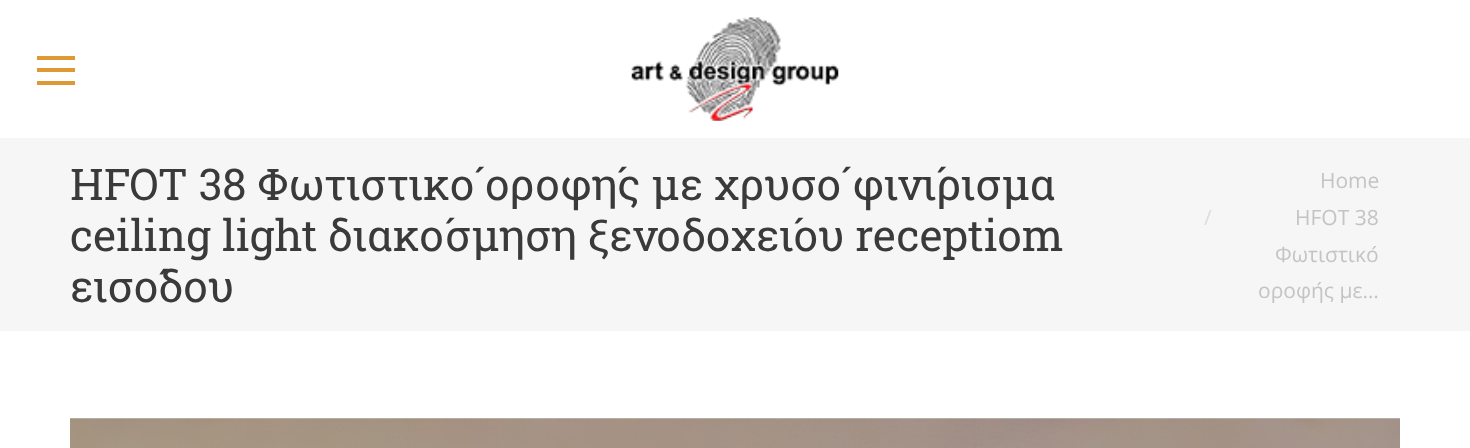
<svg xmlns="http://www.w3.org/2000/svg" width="1470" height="448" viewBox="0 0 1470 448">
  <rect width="100%" height="100%" fill="#fff"/>
  <path d="M37 56h38v4H37z" fill="#d93"/>
  <path d="M37 68h38v4H37z" fill="#d93"/>
  <path d="M37 81h38v4H37z" fill="#d93"/>
  <image x="631" y="17" width="208" height="104" href="img/1.png"/>
  <path d="M0 138h1470v193H0z" fill="#f6f6f6"/>
  <image x="70" y="418" width="1330" height="30" href="img/2.png"/>
  <g font-family="Roboto Slab" font-size="43.75" fill="#3a3a3a">
    <text x="70" y="200">HFOT 38 Φωτιστικό οροφής με χρυσό φινίρισμα</text>
    <text x="70" y="251">ceiling light διακόσμηση ξενοδοχείου receptiom</text>
    <text x="70" y="302">εισόδου</text>
  </g>
  <text x="1320" y="188" font-family="Open Sans" font-size="21" fill="#c4c4c4">Home</text>
  <text x="1204" y="225" font-family="Open Sans" font-size="21" fill="#ddd">/</text>
  <g font-family="Open Sans" font-size="21" fill="#c4c4c4">
    <text x="1295" y="225">HFOT 38</text>
    <text x="1275" y="262">Φωτιστικό</text>
    <text x="1258" y="298">οροφής με…</text>
  </g>
</svg>
